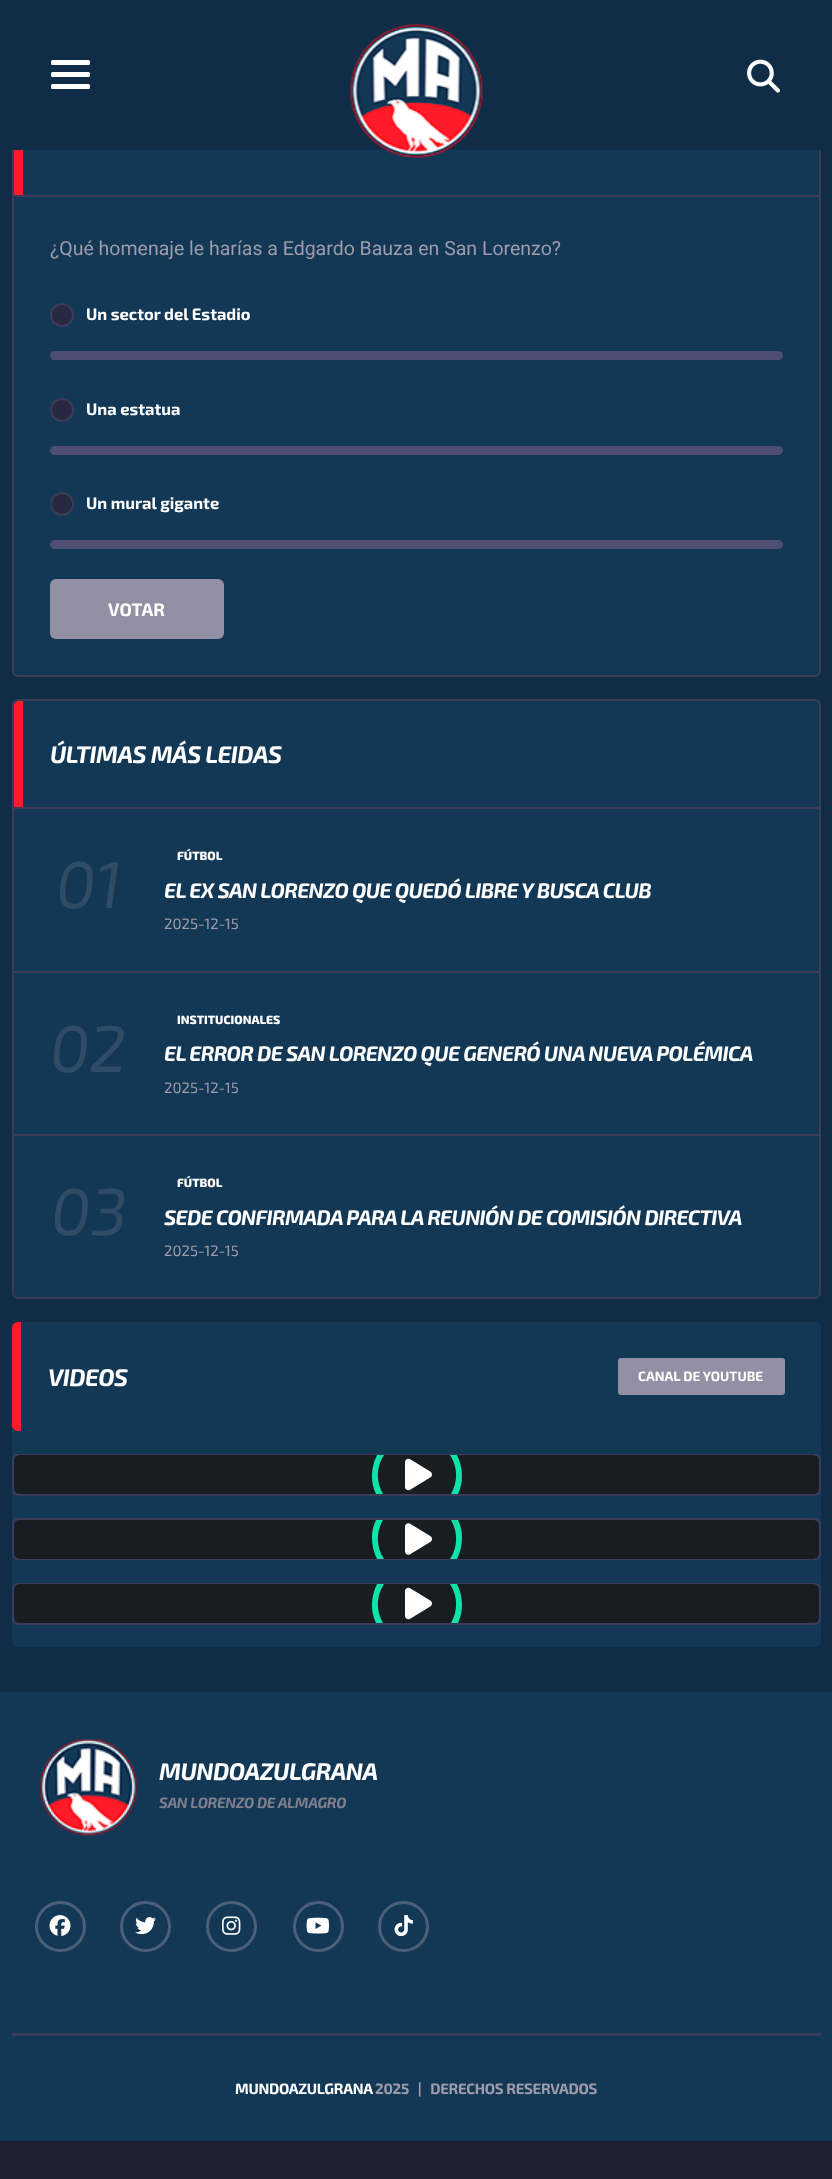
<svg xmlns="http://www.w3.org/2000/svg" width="832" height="2179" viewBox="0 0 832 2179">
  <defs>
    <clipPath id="clip1"><rect x="14" y="1455" width="805" height="39" rx="5"/></clipPath>
    <clipPath id="clip2"><rect x="14" y="1520" width="805" height="39" rx="5"/></clipPath>
    <clipPath id="clip3"><rect x="14" y="1584" width="805" height="39" rx="5"/></clipPath>
  </defs>
  <rect width="100%" height="100%" fill="#1e202f"/>
  <path d="M0 150h832v1542H0z" fill="#0f2d46"/>
  <rect x="13" y="88" width="807" height="588" rx="5" fill="#133856" stroke="#3c3b5b" stroke-width="2"/>
  <path d="M0 0h832v150H0z" fill="#0f2d46"/>
  <rect x="51" y="60" width="39" height="5" rx="1.5" fill="#fff"/>
  <rect x="51" y="72" width="39" height="5" rx="1.5" fill="#fff"/>
  <rect x="51" y="84" width="39" height="5" rx="1.5" fill="#fff"/>
  <image x="747" y="59" width="33" height="34" href="img/1.png"/>
  <image x="350" y="24" width="133" height="134" href="img/2.png"/>
  <path d="M14 195h805v2H14z" fill="#3c3b5b"/>
  <path d="M14 150h9v45H14z" fill="#ff1b29"/>
  <circle cx="62" cy="315" r="11" fill="#282840" stroke="#3c3b5b" stroke-width="2"/>
  <rect x="50" y="351" width="733" height="9" rx="4.5" fill="#4e4d73"/>
  <circle cx="62" cy="410" r="11" fill="#282840" stroke="#3c3b5b" stroke-width="2"/>
  <rect x="50" y="446" width="733" height="9" rx="4.5" fill="#4e4d73"/>
  <circle cx="62" cy="504" r="11" fill="#282840" stroke="#3c3b5b" stroke-width="2"/>
  <rect x="50" y="540" width="733" height="9" rx="4.5" fill="#4e4d73"/>
  <rect x="50" y="579" width="174" height="60" rx="6" fill="#938fa4"/>
  <rect x="13" y="700" width="807" height="598" rx="5" fill="#133856" stroke="#3c3b5b" stroke-width="2"/>
  <path d="M19 701H814C817 701 819 703 819 706V809H14V706C14 703 16 701 19 701Z" fill="#133856"/>
  <path d="M14 807h805v2H14z" fill="#3c3b5b"/>
  <path d="M19 701H23V807H14V706C14 703 16 701 19 701Z" fill="#ff1b29"/>
  <path d="M14 971h805v2H14z" fill="#3c3b5b"/>
  <path d="M14 1134h805v2H14z" fill="#3c3b5b"/>
  <rect x="12" y="1322" width="809" height="325" rx="6" fill="#133856"/>
  <rect x="12" y="1322" width="809" height="109" rx="6" fill="#133856"/>
  <path d="M18 1322H21V1431H18C14.5 1431 12 1428.5 12 1425V1328C12 1324.5 14.5 1322 18 1322Z" fill="#ff1b29"/>
  <rect x="618" y="1358" width="167" height="37" rx="3" fill="#938fa4"/>
  <rect x="13" y="1455" width="807" height="40" rx="5" fill="none" stroke="#3c3b5b" stroke-width="2"/>
  <g clip-path="url(#clip1)">
    <rect x="14" y="1455" width="805" height="39" rx="6" fill="#171d21"/>
  </g>
  <path d="M376 1494C370 1482 371 1467 377 1455H384C376 1467 376 1482 383 1494ZM457 1455C463 1467 464 1482 458 1494H451C458 1482 458 1467 450 1455Z" fill="#0fe3ab" fill-rule="evenodd"/>
  <image x="405" y="1458" width="27" height="33" href="img/3.png"/>
  <rect x="13" y="1519" width="807" height="40" rx="5" fill="none" stroke="#3c3b5b" stroke-width="2"/>
  <g clip-path="url(#clip2)">
    <rect x="14" y="1520" width="805" height="39" rx="6" fill="#171d21"/>
  </g>
  <path d="M377 1559C371 1547 370 1532 376 1520H383C376 1532 376 1547 384 1559ZM458 1520C464 1532 463 1547 457 1559H450C458 1547 458 1532 451 1520Z" fill="#0fe3ab" fill-rule="evenodd"/>
  <image x="405" y="1523" width="27" height="32" href="img/4.png"/>
  <rect x="13" y="1584" width="807" height="40" rx="5" fill="none" stroke="#3c3b5b" stroke-width="2"/>
  <g clip-path="url(#clip3)">
    <rect x="14" y="1584" width="805" height="39" rx="6" fill="#171d21"/>
  </g>
  <path d="M376 1623C370 1611 371 1596 377 1584H384C376 1596 376 1611 383 1623ZM457 1584C463 1596 464 1611 458 1623H451C458 1611 458 1596 450 1584Z" fill="#0fe3ab" fill-rule="evenodd"/>
  <image x="405" y="1587" width="27" height="33" href="img/3.png"/>
  <path d="M0 1692h832v449H0z" fill="#133856"/>
  <path d="M12 2033h809v3H12z" fill="#3c3b5b"/>
  <image x="40" y="1739" width="97" height="97" href="img/5.png"/>
  <circle cx="60.5" cy="1926.5" r="24" fill="none" stroke="#4b6078" stroke-width="3"/>
  <image x="49" y="1915" width="22" height="21" href="img/6.png"/>
  <circle cx="145.5" cy="1926.5" r="24" fill="none" stroke="#4b6078" stroke-width="3"/>
  <image x="135" y="1917" width="21" height="18" href="img/7.png"/>
  <circle cx="231.5" cy="1926.5" r="24" fill="none" stroke="#4b6078" stroke-width="3"/>
  <image x="222" y="1916" width="19" height="19" href="img/8.png"/>
  <circle cx="318.5" cy="1926.5" r="24" fill="none" stroke="#4b6078" stroke-width="3"/>
  <image x="306" y="1917" width="23" height="17" href="img/9.png"/>
  <circle cx="403.5" cy="1926.5" r="24" fill="none" stroke="#4b6078" stroke-width="3"/>
  <image x="394" y="1915" width="19" height="22" href="img/10.png"/>
  <text x="50" y="255" font-family="Roboto" font-size="19.5" fill="#9e9caa">¿Qué homenaje le harías a Edgardo Bauza en San Lorenzo?</text>
  <g font-family="'Exo 2'" font-size="16.5" font-weight="bold" fill="#fff">
    <text x="86" y="320">Un sector del Estadio</text>
    <text x="86" y="415">Una estatua</text>
    <text x="86" y="509">Un mural gigante</text>
  </g>
  <text x="108" y="616" font-family="'Exo 2'" font-size="18" font-weight="bold" fill="#fff">VOTAR</text>
  <text x="50" y="763" font-family="'Exo 2'" font-size="24" font-weight="bold" font-style="italic" letter-spacing="-0.5" fill="#fff">ÚLTIMAS MÁS LEIDAS</text>
  <text x="56" y="908" font-family="'Exo 2'" font-size="66" font-style="italic" fill="#2f4c67">01</text>
  <text x="177" y="860" font-family="'Exo 2'" font-size="12" font-weight="800" fill="#fff">FÚTBOL</text>
  <text x="164" y="898" font-family="'Exo 2'" font-size="21" font-weight="bold" font-style="italic" letter-spacing="-0.63" fill="#fff">EL EX SAN LORENZO QUE QUEDÓ LIBRE Y BUSCA CLUB</text>
  <text x="164" y="929" font-family="'Exo 2'" font-size="15" fill="#9e9caa">2025-12-15</text>
  <text x="50" y="1072" font-family="'Exo 2'" font-size="66" font-style="italic" fill="#2f4c67">02</text>
  <text x="177" y="1024" font-family="'Exo 2'" font-size="12" font-weight="800" fill="#fff">INSTITUCIONALES</text>
  <text x="164" y="1061" font-family="'Exo 2'" font-size="21" font-weight="bold" font-style="italic" letter-spacing="-0.63" fill="#fff">EL ERROR DE SAN LORENZO QUE GENERÓ UNA NUEVA POLÉMICA</text>
  <text x="164" y="1093" font-family="'Exo 2'" font-size="15" fill="#9e9caa">2025-12-15</text>
  <text x="51" y="1235" font-family="'Exo 2'" font-size="66" font-style="italic" fill="#2f4c67">03</text>
  <text x="177" y="1187" font-family="'Exo 2'" font-size="12" font-weight="800" fill="#fff">FÚTBOL</text>
  <text x="164" y="1225" font-family="'Exo 2'" font-size="21" font-weight="bold" font-style="italic" letter-spacing="-0.63" fill="#fff">SEDE CONFIRMADA PARA LA REUNIÓN DE COMISIÓN DIRECTIVA</text>
  <text x="164" y="1256" font-family="'Exo 2'" font-size="15" fill="#9e9caa">2025-12-15</text>
  <text x="48" y="1386" font-family="'Exo 2'" font-size="24" font-weight="bold" font-style="italic" letter-spacing="-0.5" fill="#fff">VIDEOS</text>
  <text x="638" y="1381" font-family="'Exo 2'" font-size="13.5" font-weight="bold" fill="#fff">CANAL DE YOUTUBE</text>
  <text x="159" y="1780" font-family="'Exo 2'" font-size="24" font-weight="bold" font-style="italic" letter-spacing="-0.5" fill="#fff">MUNDOAZULGRANA</text>
  <text x="159" y="1808" font-family="'Exo 2'" font-size="15" font-weight="bold" font-style="italic" letter-spacing="-0.3" fill="#7f7e8c">SAN LORENZO DE ALMAGRO</text>
  <text x="235" y="2094" font-family="'Exo 2'" font-size="15" font-weight="bold" letter-spacing="-0.3" fill="#fff">MUNDOAZULGRANA</text>
  <text x="375" y="2094" font-family="'Exo 2'" font-size="15" font-weight="bold" letter-spacing="-0.3" fill="#9e9caa" xml:space="preserve">2025   |   DERECHOS RESERVADOS</text>
</svg>
